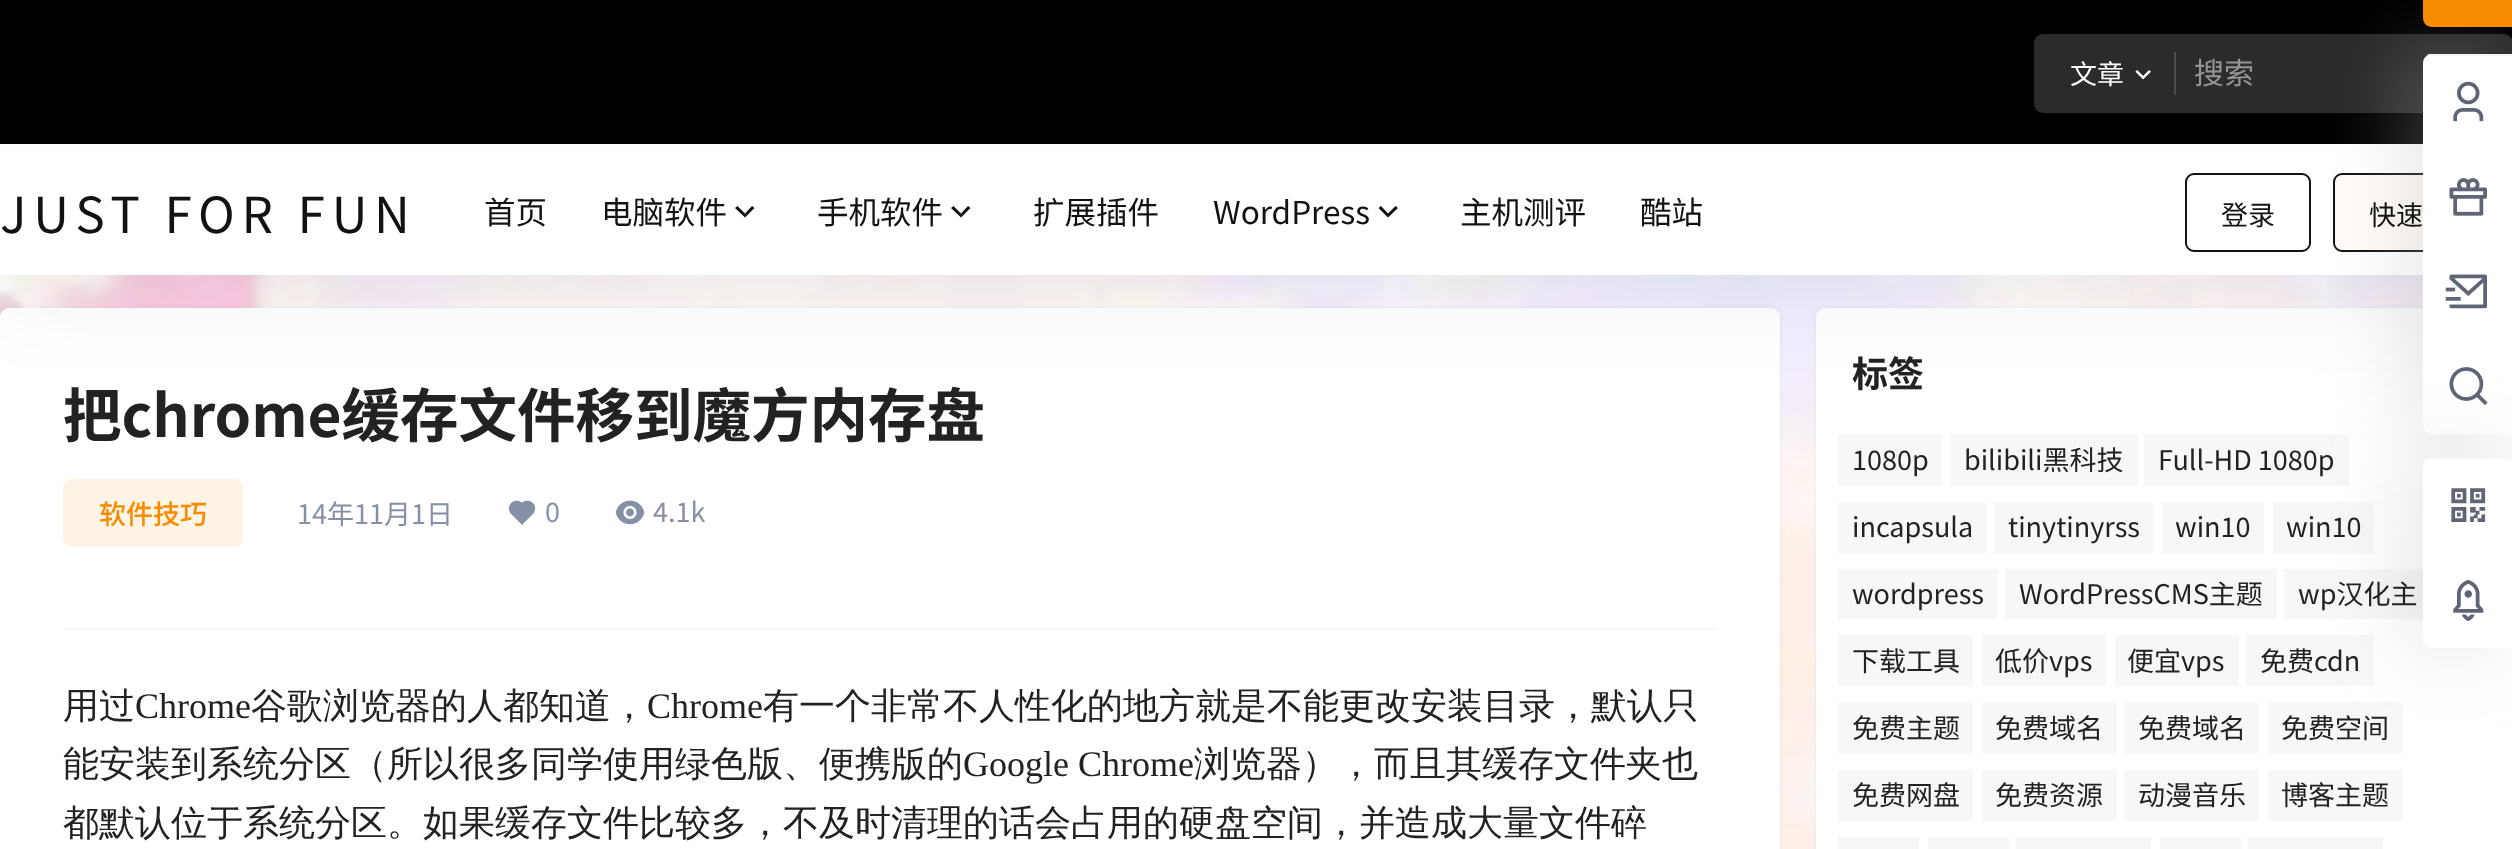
<svg xmlns="http://www.w3.org/2000/svg" width="2512" height="849" viewBox="0 0 2512 849">
  <rect width="100%" height="100%" fill="#fff"/>
  <image x="0" y="275" width="2423" height="574" href="img/1.png"/>
  <rect y="308" width="1780" height="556" rx="9" fill="#627c991a" filter="blur(2px)"/>
  <rect y="308" width="1780" height="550" rx="9" fill="#fff"/>
  <rect x="1816" y="308" width="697" height="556" rx="9" fill="#627c991a" filter="blur(2px)"/>
  <rect x="1816" y="308" width="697" height="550" rx="9" fill="#fff"/>
  <path d="M0 11h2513v275H0z" fill="#113a5d1a" filter="blur(45px)"/>
  <path d="M0 0h2512v144H0z" fill="#000"/>
  <rect x="2034" y="34" width="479" height="79" rx="9" fill="#2b2b2b"/>
  <path d="M2174 52h2v43H2174z" fill="#4d4d4d"/>
  <image x="2135" y="70" width="16" height="10" href="img/2.png"/>
  <path d="M0 146h2423v129H0z" fill="#fff"/>
  <path d="M0 144h2423v2H0z" fill="#fcfcfc"/>
  <path d="M745 213.5L752 206L754.5 208L745 217.5L735 208L737.5 206Z" fill="#121212"/>
  <path d="M961 213.5L968 206L970.5 208L961 217.5L951 208L953.5 206Z" fill="#121212"/>
  <path d="M1388 213.5L1395.5 206L1398 208L1388 217.5L1378.5 208L1381 206Z" fill="#121212"/>
  <rect x="2186" y="174" width="124" height="77" rx="8" fill="none" stroke="#121212" stroke-width="2"/>
  <rect x="2334" y="174" width="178" height="77" rx="8" fill="#fffcf7" stroke="#121212" stroke-width="2"/>
  <path d="M2144 434h205v52H2144z" fill="#f7f7f7"/>
  <path d="M2273 502h101v52H2273z" fill="#f7f7f7"/>
  <rect x="2405" y="54" width="90" height="380" rx="9" fill="#b5b5b552" filter="blur(39.5px)"/>
  <path d="M2432-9H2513V27H2432C2427 27 2423 23 2423 18V0C2423-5 2427-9 2432-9Z" fill="#f88c00"/>
  <path d="M2432 54H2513V434H2432C2427 434 2423 430 2423 425V63C2423 58 2427 54 2432 54Z" fill="#fff"/>
  <path d="M2428 54h84v2H2428z" fill="#f5f6f7"/>
  <image x="2453" y="81" width="31" height="41" href="img/3.png"/>
  <image x="2449" y="178" width="38" height="38" href="img/4.png"/>
  <image x="2445" y="274" width="42" height="35" href="img/5.png"/>
  <image x="2449" y="367" width="39" height="39" href="img/6.png"/>
  <path d="M2284 569h139v50H2284z" fill="#f7f7f7"/>
  <path d="M2246 635h128v51H2246z" fill="#f7f7f7"/>
  <path d="M2268 702h135v52H2268z" fill="#f7f7f7"/>
  <rect x="2405" y="457" width="90" height="191" rx="9" fill="#b5b5b552" filter="blur(39.5px)"/>
  <path d="M2432 457H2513V648H2432C2427 648 2423 644 2423 639V466C2423 461 2427 457 2432 457Z" fill="#fff"/>
  <path d="M2428 457h84v2H2428z" fill="#f5f6f7"/>
  <image x="2451" y="488" width="35" height="34" href="img/7.png"/>
  <image x="2453" y="579" width="31" height="43" href="img/8.png"/>
  <path d="M63 628h1654v2H63z" fill="#f5f6f7"/>
  <rect x="63" y="479" width="180" height="68" rx="9" fill="#fef4e6"/>
  <image x="508" y="500" width="28" height="25" href="img/9.png"/>
  <image x="615" y="500" width="30" height="25" href="img/10.png"/>
  <path d="M1838 434h104v52H1838z" fill="#f7f7f7"/>
  <path d="M1951 434h187v52H1951z" fill="#f7f7f7"/>
  <path d="M1838 502h149v52H1838z" fill="#f7f7f7"/>
  <path d="M1994 502h159v52H1994z" fill="#f7f7f7"/>
  <path d="M2162 502h102v52H2162z" fill="#f7f7f7"/>
  <path d="M1838 569h160v50H1838z" fill="#f7f7f7"/>
  <path d="M2005 569h272v50H2005z" fill="#f7f7f7"/>
  <path d="M1838 635h135v51H1838z" fill="#f7f7f7"/>
  <path d="M1982 635h124v51H1982z" fill="#f7f7f7"/>
  <path d="M2115 635h124v51H2115z" fill="#f7f7f7"/>
  <path d="M1838 702h135v52H1838z" fill="#f7f7f7"/>
  <path d="M1982 702h135v52H1982z" fill="#f7f7f7"/>
  <path d="M2124 702h135v52H2124z" fill="#f7f7f7"/>
  <path d="M1838 770h135v51H1838z" fill="#f7f7f7"/>
  <path d="M1982 770h135v51H1982z" fill="#f7f7f7"/>
  <path d="M2124 770h135v51H2124z" fill="#f7f7f7"/>
  <path d="M2268 770h135v51H2268z" fill="#f7f7f7"/>
  <path d="M1838 837h81v12H1838z" fill="#f7f7f7"/>
  <path d="M1928 837h81v12H1928z" fill="#f7f7f7"/>
  <path d="M2016 837h135v12H2016z" fill="#f7f7f7"/>
  <path d="M2160 837h81v12H2160z" fill="#f7f7f7"/>
  <path d="M2248 837h135v12H2248z" fill="#f7f7f7"/>
  <text x="2070" y="84" font-family="Noto Sans CJK SC" font-size="27" fill="#fff">文章</text>
  <text x="2194" y="84" font-family="Noto Sans CJK SC" font-size="30" fill="#959595">搜索</text>
  <text x="0" y="233" font-family="Noto Sans CJK SC" font-size="49.5" letter-spacing="6.75" fill="#121212">JUST FOR FUN</text>
  <g font-family="Noto Sans CJK SC" font-size="31.5" fill="#121212">
    <text x="484" y="224">首页</text>
    <text x="601" y="224">电脑软件</text>
    <text x="817" y="224">手机软件</text>
    <text x="1033" y="224">扩展插件</text>
    <text x="1213" y="224">WordPress</text>
    <text x="1460" y="224">主机测评</text>
    <text x="1640" y="224">酷站</text>
  </g>
  <g font-family="Noto Sans CJK SC" font-size="27" fill="#121212">
    <text x="2221" y="225">登录</text>
    <text x="2369" y="225">快速</text>
  </g>
  <text x="63" y="437" font-family="Noto Sans CJK SC" font-size="58.5" font-weight="bold" fill="#222">把chrome缓存文件移到魔方内存盘</text>
  <text x="99" y="524" font-family="Noto Sans CJK SC" font-size="27" font-weight="500" fill="#f88c00">软件技巧</text>
  <g font-family="Noto Sans CJK SC" font-size="27" fill="#8590a6">
    <text x="297" y="524">14年11月1日</text>
    <text x="545" y="522">0</text>
    <text x="653" y="522">4.1k</text>
  </g>
  <text x="63" y="718" font-family="WenQuanYi Zen Hei" font-size="36" font-weight="500" fill="#222">用过</text>
  <text x="135" y="718" font-family="Liberation Serif" font-size="36" fill="#222">Chrome</text>
  <text x="251" y="718" font-family="WenQuanYi Zen Hei" font-size="36" font-weight="500" fill="#222">谷歌浏览器的人都知道，</text>
  <text x="647" y="718" font-family="Liberation Serif" font-size="36" fill="#222">Chrome</text>
  <g font-family="WenQuanYi Zen Hei" font-size="36" font-weight="500" fill="#222">
    <text x="763" y="718">有一个非常不人性化的地方就是不能更改安装目录，默认只</text>
    <text x="63" y="776">能安装到系统分区（所以很多同学使用绿色版、便携版的</text>
  </g>
  <text x="963" y="776" font-family="Liberation Serif" font-size="36" fill="#222">Google Chrome</text>
  <g font-family="WenQuanYi Zen Hei" font-size="36" font-weight="500" fill="#222">
    <text x="1194" y="776">浏览器），而且其缓存文件夹也</text>
    <text x="63" y="835">都默认位于系统分区。如果缓存文件比较多，不及时清理的话会占用的硬盘空间，并造成大量文件碎</text>
  </g>
  <text x="1852" y="387" font-family="Noto Sans CJK SC" font-size="36" font-weight="bold" fill="#222">标签</text>
  <g font-family="Noto Sans CJK SC" font-size="27" fill="#222">
    <text x="1852" y="470">1080p</text>
    <text x="1964" y="470">bilibili黑科技</text>
    <text x="2158" y="470">Full-HD 1080p</text>
    <text x="1852" y="537">incapsula</text>
    <text x="2008" y="537">tinytinyrss</text>
    <text x="2175" y="537">win10</text>
    <text x="2286" y="537">win10</text>
    <text x="1852" y="604">wordpress</text>
    <text x="2019" y="604">WordPressCMS主题</text>
    <text x="2298" y="604">wp汉化主</text>
    <text x="1852" y="671">下载工具</text>
    <text x="1995" y="671">低价vps</text>
    <text x="2127" y="671">便宜vps</text>
    <text x="2260" y="671">免费cdn</text>
    <text x="1852" y="738">免费主题</text>
    <text x="1995" y="738">免费域名</text>
    <text x="2138" y="738">免费域名</text>
    <text x="2281" y="738">免费空间</text>
    <text x="1852" y="805">免费网盘</text>
    <text x="1995" y="805">免费资源</text>
    <text x="2138" y="805">动漫音乐</text>
    <text x="2281" y="805">博客主题</text>
  </g>
</svg>
